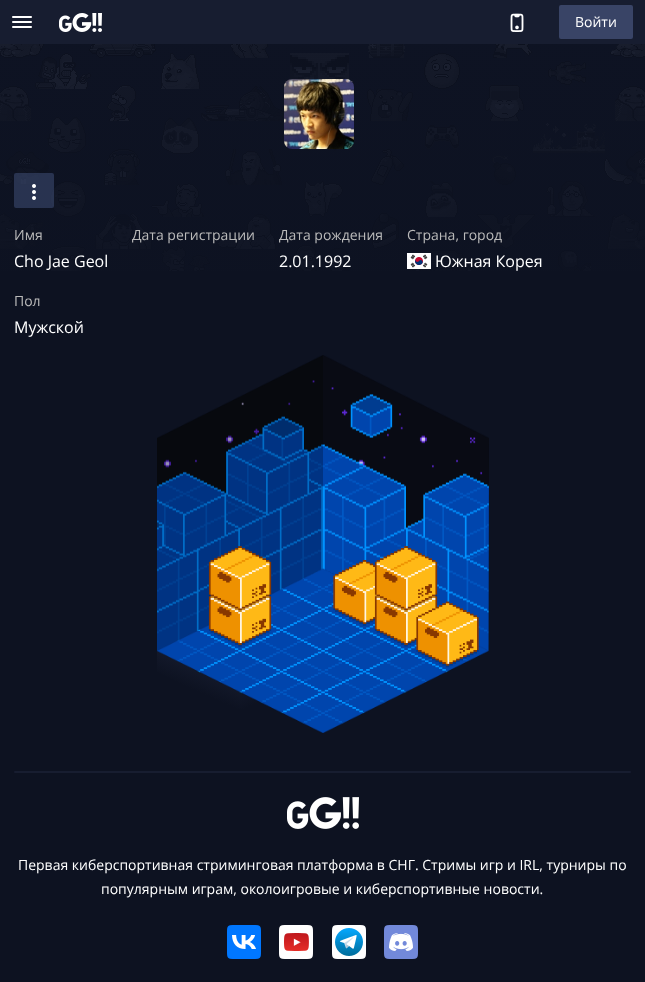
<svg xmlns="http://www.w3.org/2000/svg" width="645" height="982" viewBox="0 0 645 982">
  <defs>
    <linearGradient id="g1" gradientUnits="userSpaceOnUse" x1="219" y1="663" x2="205" y2="695"><stop offset="0" stop-color="#171d30"/><stop offset="1" stop-color="#0d1221"/></linearGradient>
    <linearGradient id="g2" gradientUnits="userSpaceOnUse" x1="282" y1="652" x2="297" y2="685"><stop offset="0" stop-color="#171d30"/><stop offset="1" stop-color="#0d1221"/></linearGradient>
  </defs>
  <rect width="100%" height="100%" fill="#0d1221"/>
  <path d="M0 0h645v44H0z" fill="#171d30"/>
  <image x="12" y="16" width="20" height="12" href="img/1.png"/>
  <image x="59" y="13" width="43" height="19" href="img/2.png"/>
  <image x="510" y="13" width="14" height="19" href="img/3.png"/>
  <rect x="559" y="5" width="74" height="34" rx="2" fill="#394466"/>
  <image x="0" y="44" width="645" height="227" href="img/4.png"/>
  <image x="284" y="79" width="70" height="70" href="img/5.png"/>
  <rect x="14" y="173" width="40" height="35" rx="2" fill="#44537e80"/>
  <image x="32" y="184" width="4" height="16" href="img/6.png"/>
  <image x="407" y="253" width="24" height="16" href="img/7.png"/>
  <path d="M157 631H240V711C240 712 240 712 239 712L157 672Z" fill="url(#g1)"/>
  <path d="M240 631H323V672L241 712C241 712 240 712 240 711Z" fill="url(#g2)"/>
  <image x="157" y="355" width="332" height="378" href="img/8.png"/>
  <rect x="14" y="771" width="617" height="2" rx="1" fill="#171d30"/>
  <image x="287" y="797" width="72" height="32" href="img/9.png"/>
  <image x="227" y="925" width="34" height="34" href="img/10.png"/>
  <image x="279" y="925" width="34" height="34" href="img/11.png"/>
  <image x="332" y="925" width="34" height="34" href="img/12.png"/>
  <image x="384" y="925" width="34" height="34" href="img/13.png"/>
  <text x="575" y="27" font-family="Open Sans" font-size="14" fill="#fff">Войти</text>
  <text x="14" y="240" font-family="Open Sans" font-size="14" fill="#bababa">Имя</text>
  <text x="14" y="267" font-family="Open Sans" font-size="16" fill="#fff">Cho Jae Geol</text>
  <g font-family="Open Sans" font-size="14" fill="#bababa">
    <text x="132" y="240">Дата регистрации</text>
    <text x="279" y="240">Дата рождения</text>
  </g>
  <text x="279" y="267" font-family="Open Sans" font-size="16" fill="#fff">2.01.1992</text>
  <text x="407" y="240" font-family="Open Sans" font-size="14" fill="#bababa">Страна, город</text>
  <text x="435" y="267" font-family="Open Sans" font-size="16" fill="#fff">Южная Корея</text>
  <text x="14" y="306" font-family="Open Sans" font-size="14" fill="#bababa">Пол</text>
  <text x="14" y="333" font-family="Open Sans" font-size="16" fill="#fff">Мужской</text>
  <g font-family="Open Sans" font-size="14" fill="#fff">
    <text x="18" y="870">Первая киберспортивная стриминговая платформа в СНГ. Стримы игр и IRL, турниры по</text>
    <text x="101" y="894">популярным играм, околоигровые и киберспортивные новости.</text>
  </g>
</svg>
